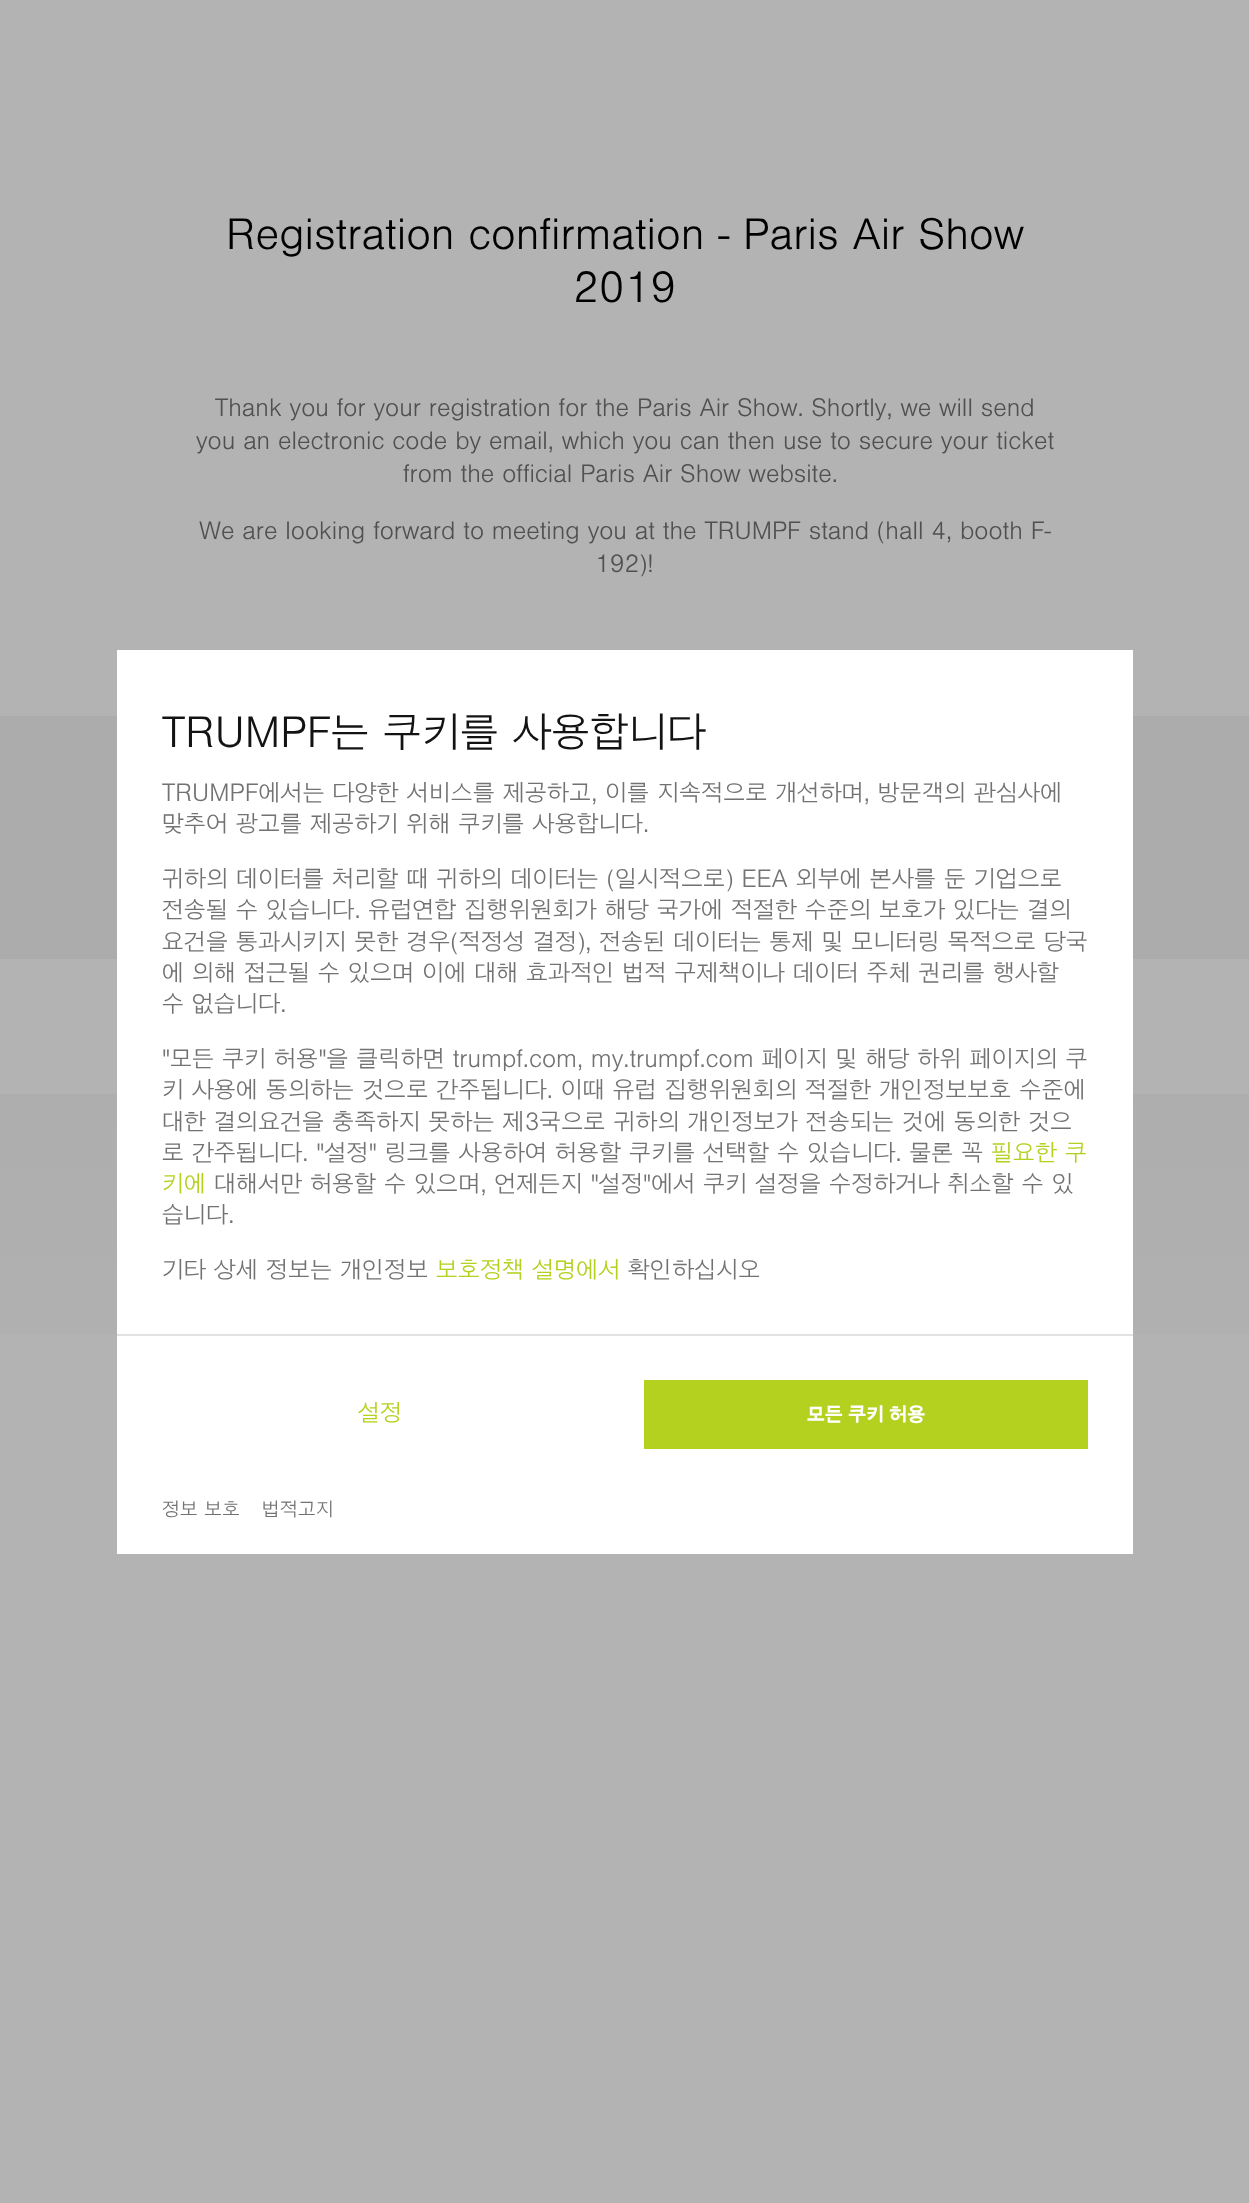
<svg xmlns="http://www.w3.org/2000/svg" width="1249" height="2203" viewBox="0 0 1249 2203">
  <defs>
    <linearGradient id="g1" gradientUnits="userSpaceOnUse" x1="625" y1="1094" x2="625" y2="1575"><stop offset="0" stop-color="#aeaeae"/><stop offset="1" stop-color="#b3b3b3"/></linearGradient>
  </defs>
  <rect width="100%" height="100%" fill="#b3b3b3"/>
  <path d="M0 716h1249v243H0z" fill="#acacac"/>
  <path d="M0 1094h1249v240H0z" fill="url(#g1)"/>
  <path d="M117 650h1016v904H117z" fill="#fff"/>
  <path d="M117 1334h1016v2H117z" fill="#e2e2e2"/>
  <path d="M644 1380h444v69H644z" fill="#b3d11e"/>
  <g font-family="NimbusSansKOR" font-size="42" font-weight="300" fill="#000">
    <text x="226" y="249">Registration confirmation - Paris Air Show</text>
    <text x="573" y="302">2019</text>
  </g>
  <g font-family="NimbusSansKOR" font-size="24" font-weight="300" fill="#505050">
    <text x="215" y="416">Thank you for your registration for the Paris Air Show. Shortly, we will send</text>
    <text x="196" y="449">you an electronic code by email, which you can then use to secure your ticket</text>
    <text x="403" y="482">from the official Paris Air Show website.</text>
    <text x="199" y="539">We are looking forward to meeting you at the TRUMPF stand (hall 4, booth F-</text>
    <text x="595" y="572">192)!</text>
  </g>
  <text x="162" y="747" font-family="NimbusSansKOR" font-size="42" font-weight="300" fill="#131313">TRUMPF는 쿠키를 사용합니다</text>
  <g font-family="NimbusSansKOR" font-size="24" font-weight="300" fill="#727272">
    <text x="162" y="801">TRUMPF에서는 다양한 서비스를 제공하고, 이를 지속적으로 개선하며, 방문객의 관심사에</text>
    <text x="162" y="832">맞추어 광고를 제공하기 위해 쿠키를 사용합니다.</text>
    <text x="162" y="887">귀하의 데이터를 처리할 때 귀하의 데이터는 (일시적으로) EEA 외부에 본사를 둔 기업으로</text>
    <text x="162" y="918">전송될 수 있습니다. 유럽연합 집행위원회가 해당 국가에 적절한 수준의 보호가 있다는 결의</text>
    <text x="162" y="950">요건을 통과시키지 못한 경우(적정성 결정), 전송된 데이터는 통제 및 모니터링 목적으로 당국</text>
    <text x="162" y="981">에 의해 접근될 수 있으며 이에 대해 효과적인 법적 구제책이나 데이터 주체 권리를 행사할</text>
    <text x="162" y="1012">수 없습니다.</text>
    <text x="162" y="1067">"모든 쿠키 허용"을 클릭하면 trumpf.com, my.trumpf.com 페이지 및 해당 하위 페이지의 쿠</text>
    <text x="162" y="1098">키 사용에 동의하는 것으로 간주됩니다. 이때 유럽 집행위원회의 적절한 개인정보보호 수준에</text>
    <text x="162" y="1130">대한 결의요건을 충족하지 못하는 제3국으로 귀하의 개인정보가 전송되는 것에 동의한 것으</text>
    <text x="162" y="1161">로 간주됩니다. "설정" 링크를 사용하여 허용할 쿠키를 선택할 수 있습니다. 물론 꼭</text>
  </g>
  <g font-family="NimbusSansKOR" font-size="24" font-weight="300" fill="#b3d11e">
    <text x="991" y="1161">필요한 쿠</text>
    <text x="162" y="1192">키에</text>
  </g>
  <g font-family="NimbusSansKOR" font-size="24" font-weight="300" fill="#727272">
    <text x="214" y="1192">대해서만 허용할 수 있으며, 언제든지 "설정"에서 쿠키 설정을 수정하거나 취소할 수 있</text>
    <text x="162" y="1223">습니다.</text>
    <text x="162" y="1278">기타 상세 정보는 개인정보</text>
  </g>
  <text x="436" y="1278" font-family="NimbusSansKOR" font-size="24" font-weight="300" fill="#b3d11e">보호정책 설명에서</text>
  <text x="628" y="1278" font-family="NimbusSansKOR" font-size="24" font-weight="300" fill="#727272">확인하십시오</text>
  <text x="358" y="1421" font-family="NimbusSansKOR" font-size="24" font-weight="300" fill="#b3d11e">설정</text>
  <text x="807" y="1421" font-family="NimbusSansKOR" font-size="19.5" font-weight="bold" fill="#fff">모든 쿠키 허용</text>
  <g font-family="NimbusSansKOR" font-size="19.5" font-weight="300" fill="#727272">
    <text x="162" y="1516">정보 보호</text>
    <text x="262" y="1516">법적고지</text>
  </g>
</svg>
